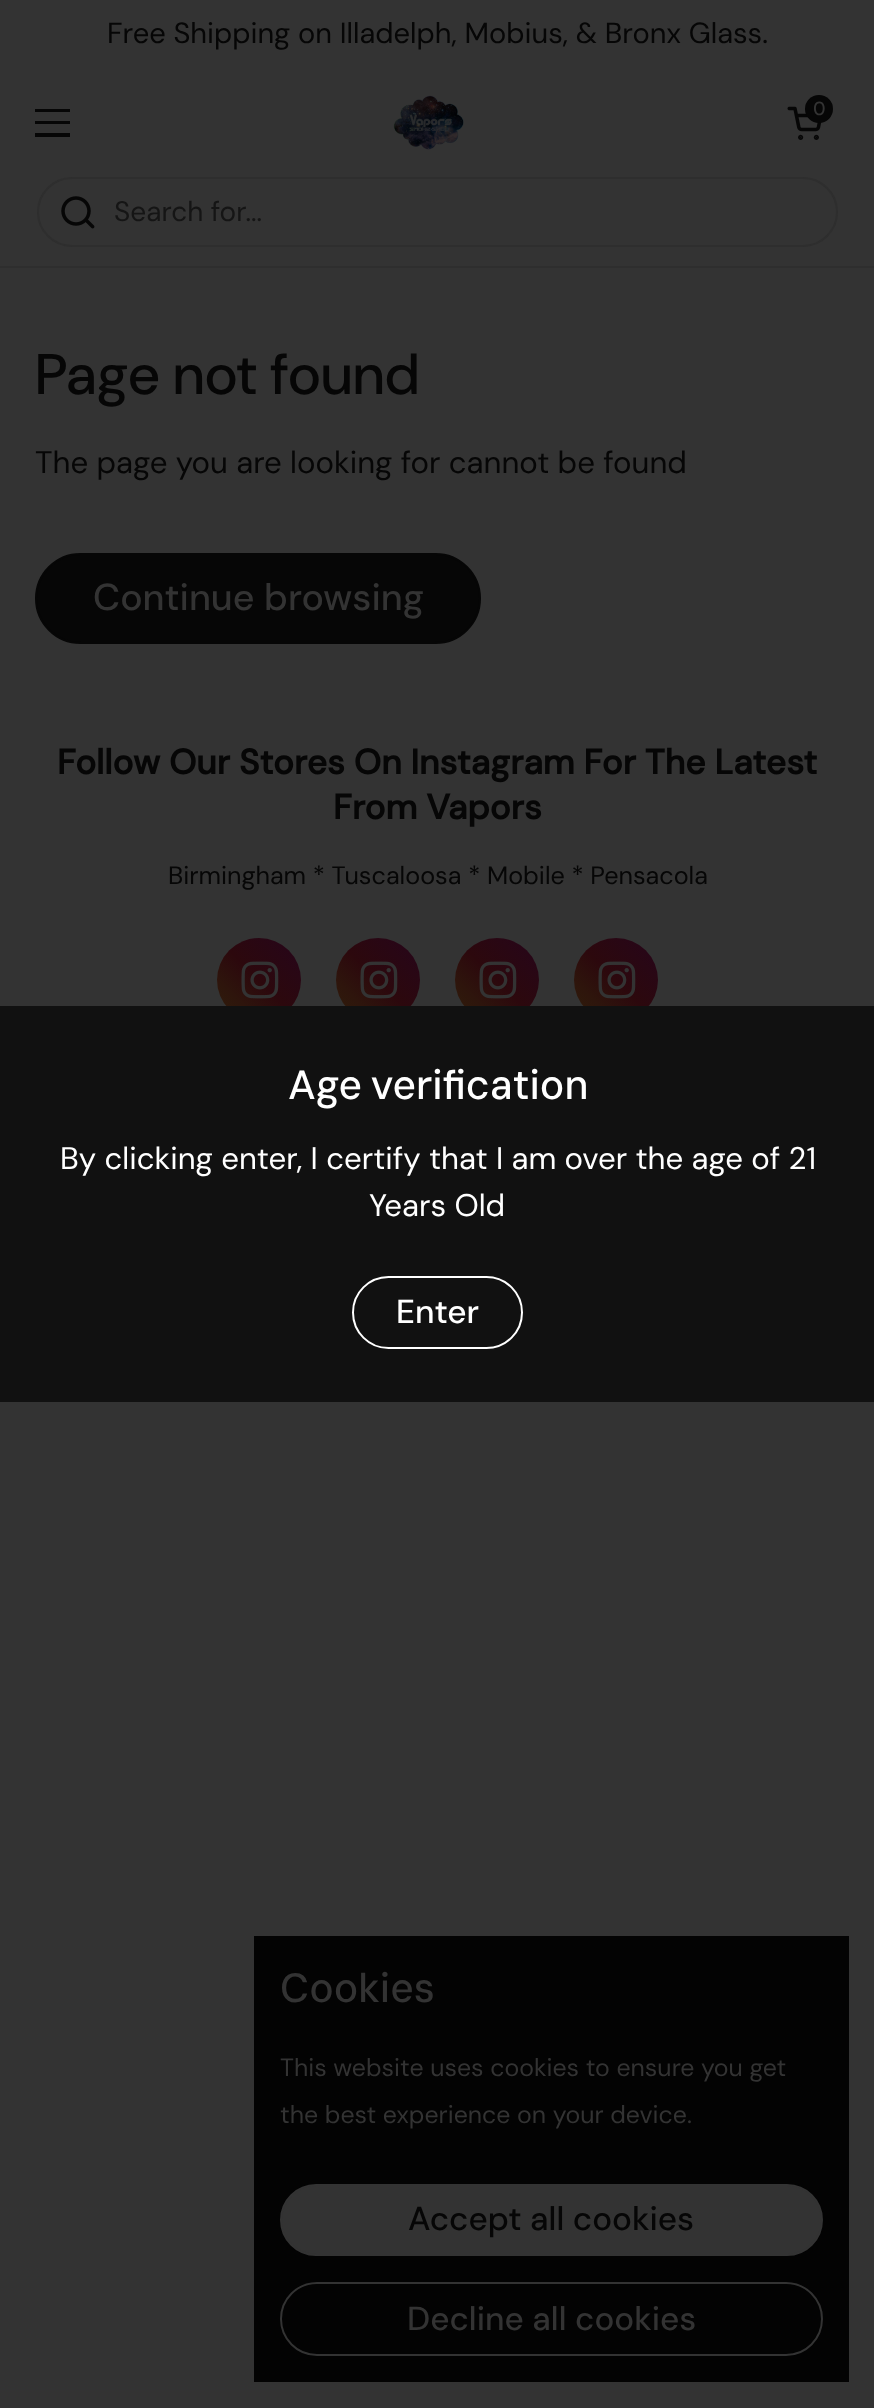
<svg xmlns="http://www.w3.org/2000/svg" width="874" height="2408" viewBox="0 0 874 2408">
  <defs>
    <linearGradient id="g1" gradientUnits="userSpaceOnUse" x1="217" y1="1022" x2="301" y2="938"><stop offset="0" stop-color="#301e0a"/><stop offset="0.25" stop-color="#2e150c"/><stop offset="0.5" stop-color="#2c080d"/><stop offset="0.75" stop-color="#290714"/><stop offset="1" stop-color="#26051b"/></linearGradient>
    <linearGradient id="g2" gradientUnits="userSpaceOnUse" x1="336" y1="1022" x2="420" y2="938"><stop offset="0" stop-color="#301e0a"/><stop offset="0.25" stop-color="#2e150c"/><stop offset="0.5" stop-color="#2c080d"/><stop offset="0.75" stop-color="#290714"/><stop offset="1" stop-color="#26051b"/></linearGradient>
    <linearGradient id="g3" gradientUnits="userSpaceOnUse" x1="455" y1="1022" x2="539" y2="938"><stop offset="0" stop-color="#301e0a"/><stop offset="0.25" stop-color="#2e150c"/><stop offset="0.5" stop-color="#2c080d"/><stop offset="0.75" stop-color="#290714"/><stop offset="1" stop-color="#26051b"/></linearGradient>
    <linearGradient id="g4" gradientUnits="userSpaceOnUse" x1="574" y1="1022" x2="658" y2="938"><stop offset="0" stop-color="#301e0a"/><stop offset="0.25" stop-color="#2e150c"/><stop offset="0.5" stop-color="#2c080d"/><stop offset="0.75" stop-color="#290714"/><stop offset="1" stop-color="#26051b"/></linearGradient>
  </defs>
  <rect width="100%" height="100%" fill="#333"/>
  <path d="M35 109h35v3H35z" fill="#060606"/>
  <path d="M35 121h35v3H35z" fill="#060606"/>
  <path d="M35 133h35v4H35z" fill="#060606"/>
  <image x="393" y="95" width="71" height="55" href="img/1.png"/>
  <image x="787" y="106" width="35" height="34" href="img/2.png"/>
  <circle cx="819" cy="109" r="14" fill="#060606"/>
  <path d="M0 266h874v2H0z" fill="#2e2e2e"/>
  <rect x="38" y="178" width="799" height="68" rx="34" fill="none" stroke="#2e2e2e" stroke-width="2"/>
  <image x="61" y="196" width="34" height="33" href="img/3.png"/>
  <rect x="36" y="554" width="444" height="89" rx="44.5" fill="#060606" stroke="#060606" stroke-width="2"/>
  <circle cx="259" cy="980" r="42" fill="url(#g1)"/>
  <image x="241" y="961" width="38" height="38" href="img/4.png"/>
  <circle cx="378" cy="980" r="42" fill="url(#g2)"/>
  <image x="360" y="961" width="38" height="38" href="img/4.png"/>
  <circle cx="497" cy="980" r="42" fill="url(#g3)"/>
  <image x="479" y="961" width="38" height="38" href="img/4.png"/>
  <circle cx="616" cy="980" r="42" fill="url(#g4)"/>
  <image x="598" y="961" width="38" height="38" href="img/4.png"/>
  <path d="M0 1006h874v396H0z" fill="#111"/>
  <rect x="353" y="1277" width="169" height="71" rx="35.5" fill="none" stroke="#fff" stroke-width="2"/>
  <path d="M254 1936h595v446H254z" fill="#030303"/>
  <rect x="281" y="2185" width="541" height="70" rx="35" fill="#333" stroke="#333" stroke-width="2"/>
  <rect x="281" y="2283" width="541" height="72" rx="36" fill="none" stroke="#333" stroke-width="2"/>
  <text x="107" y="43" font-family="DM Sans" font-size="29.1" fill="#060606">Free Shipping on Illadelph, Mobius, &amp; Bronx Glass.</text>
  <text x="813" y="115" font-family="'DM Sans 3'" font-size="19" font-weight="500" fill="#333">0</text>
  <text x="114" y="221" font-family="'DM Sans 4'" font-size="28" fill="#151515">Search for...</text>
  <text x="35" y="394" font-family="DM Sans" font-size="57.25" font-weight="500" fill="#060606">Page not found</text>
  <text x="35" y="473" font-family="'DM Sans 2'" font-size="31.2" fill="#060606">The page you are looking for cannot be found</text>
  <text x="93" y="610" font-family="'DM Sans 2'" font-size="37.5" font-weight="500" fill="#333">Continue browsing</text>
  <g font-family="DM Sans" font-size="35" font-weight="bold" fill="#060606">
    <text x="57" y="774">Follow Our Stores On Instagram For The Latest</text>
    <text x="333" y="819">From Vapors</text>
  </g>
  <text x="168" y="884" font-family="'DM Sans 3'" font-size="25.2" fill="#060606">Birmingham * Tuscaloosa * Mobile * Pensacola</text>
  <text x="288" y="1099" word-spacing="-2" font-family="'DM Sans 3'" font-size="40.75" font-weight="500" fill="#fff">Age verification</text>
  <g font-family="'DM Sans 2'" font-size="31.2" fill="#fff">
    <text x="60" y="1169">By clicking enter, I certify that I am over the age of 21</text>
    <text x="369" y="1216">Years Old</text>
  </g>
  <text x="396" y="1323" font-family="'DM Sans 4'" font-size="33.25" font-weight="500" fill="#fff">Enter</text>
  <text x="280" y="2002" font-family="'DM Sans 3'" font-size="40.75" font-weight="500" fill="#333">Cookies</text>
  <g font-family="'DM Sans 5'" font-size="24.9" fill="#333">
    <text x="280" y="2076">This website uses cookies to ensure you get</text>
    <text x="280" y="2123">the best experience on your device.</text>
  </g>
  <text x="408" y="2230" font-family="'DM Sans 4'" font-size="33.25" font-weight="500" fill="#060606">Accept all cookies</text>
  <text x="407" y="2330" font-family="'DM Sans 4'" font-size="33.25" font-weight="500" fill="#333">Decline all cookies</text>
</svg>
